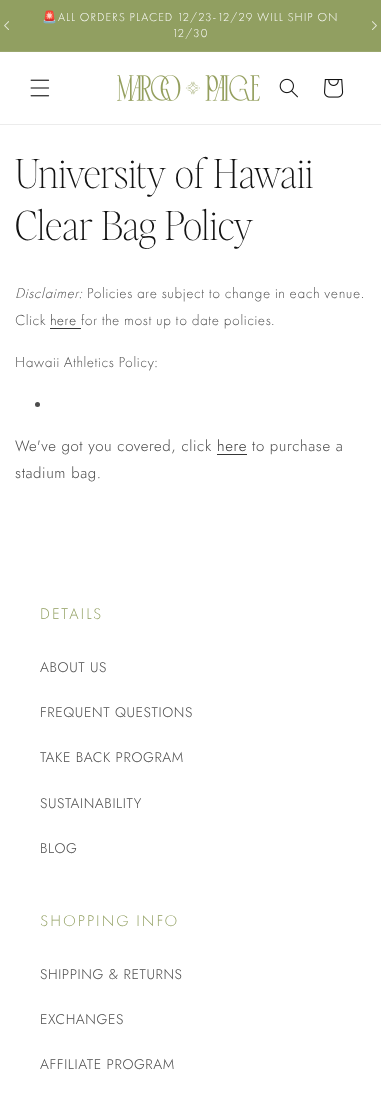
<svg xmlns="http://www.w3.org/2000/svg" width="381" height="1106" viewBox="0 0 381 1106">
  <rect width="100%" height="100%" fill="#fff"/>
  <path d="M0 0h381v51H0z" fill="#919f61"/>
  <path d="M0 51h381v1H0z" fill="#9aa76e"/>
  <image x="4" y="21" width="5" height="9" href="img/1.png"/>
  <image x="372" y="21" width="5" height="9" href="img/2.png"/>
  <path d="M0 124h381v1H0z" fill="#ececec"/>
  <image x="30" y="79" width="20" height="18" href="img/3.png"/>
  <image x="117" y="75" width="143" height="26" href="img/4.png"/>
  <image x="279" y="78" width="19" height="20" href="img/5.png"/>
  <image x="324" y="79" width="20" height="19" href="img/6.png"/>
  <path d="M50 328h31v1H50z" fill="#363636"/>
  <circle cx="37.5" cy="404.5" r="2.5" fill="#4d4d4d"/>
  <path d="M217 454h30v1H217z" fill="#363636"/>
  <text x="42" y="21" font-family="Noto Color Emoji" font-size="12" letter-spacing="1" fill="#fff">🚨</text>
  <g font-family="Futura PT" font-size="12" font-weight="300" letter-spacing="1" fill="#fff">
    <text x="58" y="21">ALL ORDERS PLACED 12/23-12/29 WILL SHIP ON</text>
    <text x="172" y="37">12/30</text>
  </g>
  <g font-family="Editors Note" font-size="40" font-weight="100" letter-spacing="0.6" fill="#121212">
    <text x="15" y="188">University of Hawaii</text>
    <text x="15" y="240">Clear Bag Policy</text>
  </g>
  <text x="15" y="298" font-family="Futura PT" font-size="15" font-weight="300" font-style="italic" letter-spacing="0.6" fill="#4d4d4d">Disclaimer:</text>
  <g font-family="Futura PT" font-size="15" font-weight="300" letter-spacing="0.6" fill="#4d4d4d">
    <text x="87" y="298">Policies are subject to change in each venue.</text>
    <text x="15" y="325">Click</text>
  </g>
  <text x="50" y="325" font-family="Futura PT" font-size="15" font-weight="300" letter-spacing="0.6" fill="#363636">here</text>
  <g font-family="Futura PT" font-size="15" font-weight="300" letter-spacing="0.6" fill="#4d4d4d">
    <text x="81" y="325">for the most up to date policies.</text>
    <text x="15" y="367">Hawaii Athletics Policy:</text>
  </g>
  <text x="15" y="451" font-family="Jost" font-size="15" font-weight="300" letter-spacing="0.6" fill="#4d4d4d">We've got you covered, click</text>
  <text x="217" y="451" font-family="Jost" font-size="15" font-weight="300" letter-spacing="0.6" fill="#363636">here</text>
  <g font-family="Jost" font-size="15" font-weight="300" letter-spacing="0.6" fill="#4d4d4d">
    <text x="252" y="451">to purchase a</text>
    <text x="15" y="478">stadium bag.</text>
  </g>
  <text x="40" y="619" font-family="Futura PT" font-size="16" font-weight="300" letter-spacing="2" fill="#919f60">DETAILS</text>
  <g font-family="Jost" font-size="14" font-weight="300" letter-spacing="0.6" fill="#4d4d4d">
    <text x="40" y="672">ABOUT US</text>
    <text x="40" y="717">FREQUENT QUESTIONS</text>
    <text x="40" y="762">TAKE BACK PROGRAM</text>
    <text x="40" y="808">SUSTAINABILITY</text>
    <text x="40" y="853">BLOG</text>
  </g>
  <text x="40" y="926" font-family="Futura PT" font-size="16" font-weight="300" letter-spacing="2" fill="#919f60">SHOPPING INFO</text>
  <g font-family="Jost" font-size="14" font-weight="300" letter-spacing="0.6" fill="#4d4d4d">
    <text x="40" y="979">SHIPPING &amp; RETURNS</text>
    <text x="40" y="1024">EXCHANGES</text>
    <text x="40" y="1069">AFFILIATE PROGRAM</text>
  </g>
</svg>
